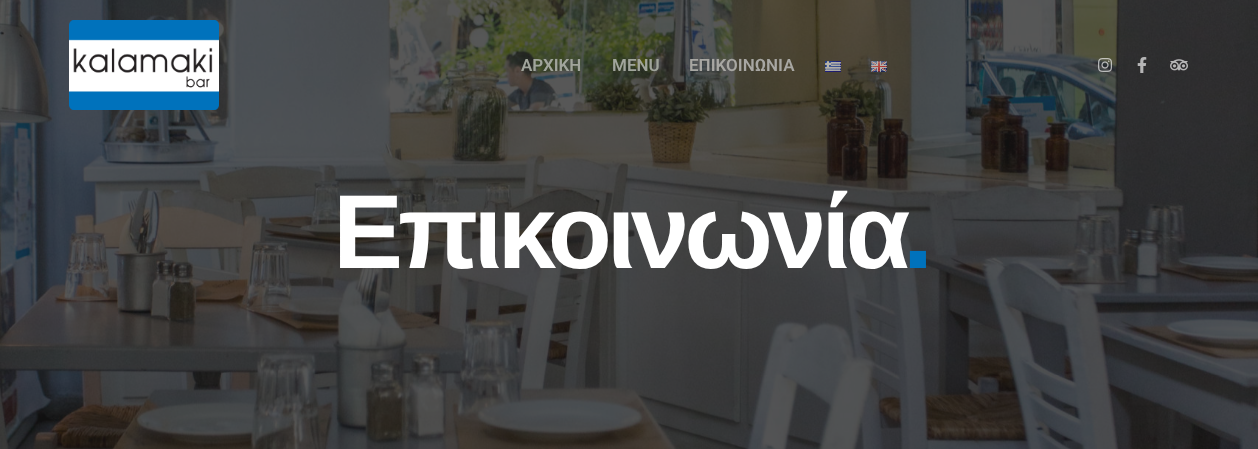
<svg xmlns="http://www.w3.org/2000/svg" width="1258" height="449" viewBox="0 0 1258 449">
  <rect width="100%" height="100%" fill="#fff"/>
  <image x="0" y="0" width="1258" height="449" href="img/7.png"/>
  <image x="69" y="20" width="150" height="90" href="img/1.png"/>
  <image x="825" y="61" width="16" height="11" href="img/2.png"/>
  <image x="871" y="61" width="16" height="11" href="img/3.png"/>
  <image x="1098" y="58" width="14" height="14" href="img/4.png"/>
  <image x="1137" y="57" width="10" height="16" href="img/5.png"/>
  <image x="1170" y="59" width="18" height="12" href="img/6.png"/>
  <g font-family="Roboto" font-size="17" font-weight="600" fill="#a1a59c">
    <text x="521" y="71">ΑΡΧΙΚΗ</text>
    <text x="612" y="71">MENU</text>
  </g>
  <text x="689" y="71" font-family="Roboto" font-size="17" font-weight="600" fill="#a8a7a3">ΕΠΙΚΟΙΝΩΝΙΑ</text>
  <text x="333" y="268" font-family="Liberation Sans" font-size="105" font-weight="bold" letter-spacing="-5" fill="#fff">Επικοινωνία</text>
  <text x="906" y="268" font-family="Zilla Slab" font-size="105" font-weight="bold" letter-spacing="-5" fill="#0072bc">.</text>
</svg>
